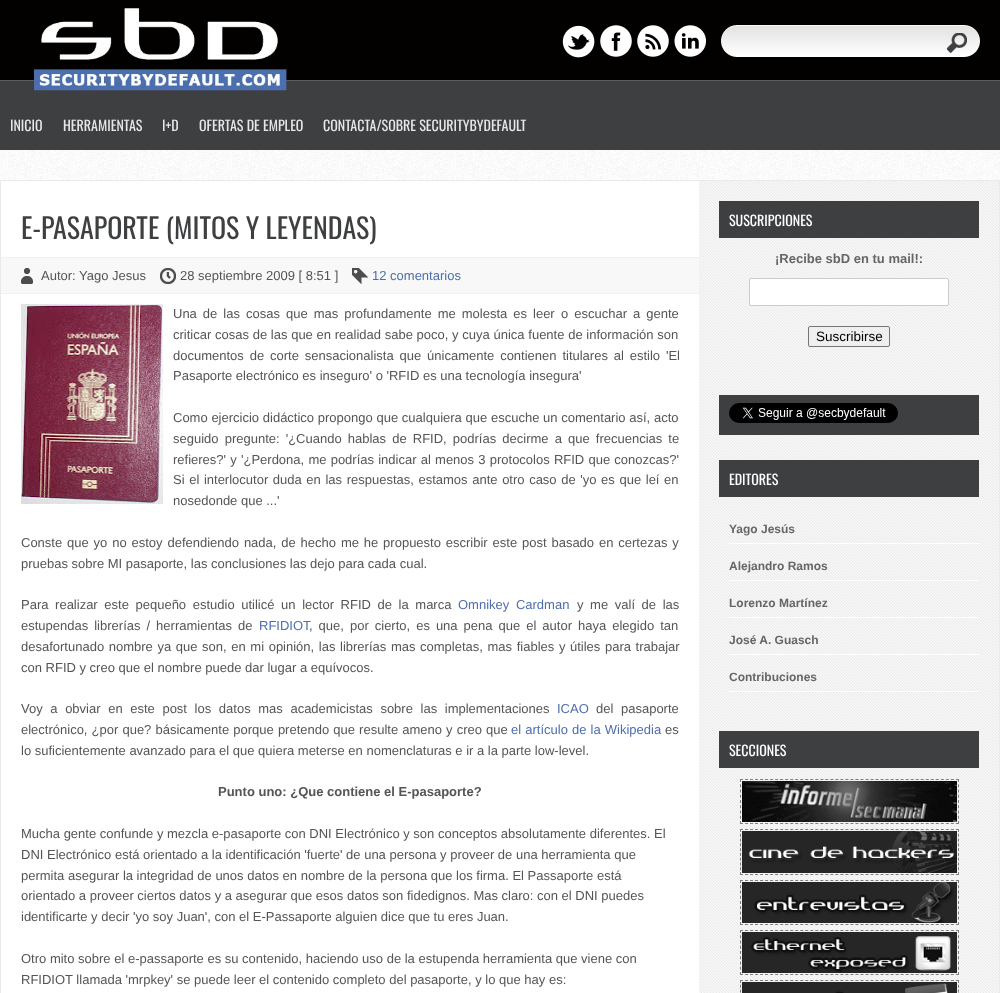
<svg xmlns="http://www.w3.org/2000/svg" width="1000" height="993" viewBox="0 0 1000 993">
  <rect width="100%" height="100%" fill="#fff"/>
  <image x="0" y="150" width="1000" height="30" href="img/1.png"/>
  <image x="0" y="0" width="1000" height="150" href="img/2.png"/>
  <image x="33" y="8" width="254" height="83" href="img/3.png"/>
  <image x="562" y="25" width="33" height="33" href="img/4.png"/>
  <image x="600" y="25" width="32" height="32" href="img/5.png"/>
  <image x="637" y="25" width="32" height="32" href="img/6.png"/>
  <image x="674" y="25" width="32" height="32" href="img/7.png"/>
  <image x="721" y="25" width="259" height="32" href="img/8.png"/>
  <image x="947" y="33" width="20" height="20" href="img/9.png"/>
  <image x="699" y="181" width="300" height="812" href="img/10.png"/>
  <path d="M0.5 180.5h999v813H0.5z" fill="none" stroke="#eaeaea"/>
  <path d="M1 258h698v35H1z" fill="#f8f8f8"/>
  <path d="M1 257h698v1H1z" fill="#f2f2f2"/>
  <path d="M1 293h698v1H1z" fill="#f2f2f2"/>
  <image x="21" y="268" width="12" height="16" href="img/11.png"/>
  <image x="160" y="268" width="16" height="16" href="img/12.png"/>
  <image x="352" y="268" width="16" height="16" href="img/13.png"/>
  <image x="21" y="304" width="142" height="200" href="img/14.png"/>
  <path d="M719 201h260v37H719z" fill="#3e3f41"/>
  <rect x="749.5" y="278.5" width="199" height="27" rx="1.5" fill="#fff" stroke="#ccc"/>
  <rect x="808.5" y="326.5" width="81" height="20" rx="1.5" fill="#efefef" stroke="#767676"/>
  <path d="M719 395h260v40H719z" fill="#3e3f41"/>
  <image x="729" y="403" width="169" height="20" href="img/15.png"/>
  <path d="M719 460h260v37H719z" fill="#3e3f41"/>
  <path d="M729 543h250v1H729z" fill="#fff"/>
  <path d="M729 580h250v1H729z" fill="#fff"/>
  <path d="M729 617h250v1H729z" fill="#fff"/>
  <path d="M729 654h250v1H729z" fill="#fff"/>
  <path d="M729 691h250v1H729z" fill="#fff"/>
  <path d="M719 731h260v37H719z" fill="#3e3f41"/>
  <path d="M740 779.5H959" fill="none" stroke="#808080" stroke-dasharray="3 2.02"/>
  <path d="M958.5 779V824" fill="none" stroke="#808080" stroke-dasharray="3 2.25"/>
  <path d="M740 823.5H959" fill="none" stroke="#808080" stroke-dasharray="3 2.02"/>
  <path d="M740.5 779V824" fill="none" stroke="#808080" stroke-dasharray="3 2.25"/>
  <image x="742" y="781" width="215" height="41" href="img/16.png"/>
  <path d="M740 829.5H959" fill="none" stroke="#808080" stroke-dasharray="3 2.02"/>
  <path d="M958.5 829V875" fill="none" stroke="#808080" stroke-dasharray="3 1.78"/>
  <path d="M740 874.5H959" fill="none" stroke="#808080" stroke-dasharray="3 2.02"/>
  <path d="M740.5 829V875" fill="none" stroke="#808080" stroke-dasharray="3 1.78"/>
  <image x="742" y="831" width="215" height="42" href="img/17.png"/>
  <path d="M740 880.5H959" fill="none" stroke="#808080" stroke-dasharray="3 2.02"/>
  <path d="M958.5 880V925" fill="none" stroke="#808080" stroke-dasharray="3 2.25"/>
  <path d="M740 924.5H959" fill="none" stroke="#808080" stroke-dasharray="3 2.02"/>
  <path d="M740.5 880V925" fill="none" stroke="#808080" stroke-dasharray="3 2.25"/>
  <image x="742" y="882" width="215" height="41" href="img/18.png"/>
  <path d="M740 930.5H959" fill="none" stroke="#808080" stroke-dasharray="3 2.02"/>
  <path d="M958.5 930V975" fill="none" stroke="#808080" stroke-dasharray="3 2.25"/>
  <path d="M740 974.5H959" fill="none" stroke="#808080" stroke-dasharray="3 2.02"/>
  <path d="M740.5 930V975" fill="none" stroke="#808080" stroke-dasharray="3 2.25"/>
  <image x="742" y="932" width="215" height="41" href="img/19.png"/>
  <path d="M740 980.5H959" fill="none" stroke="#808080" stroke-dasharray="3 2.02"/>
  <path d="M740.5 980V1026" fill="none" stroke="#808080" stroke-dasharray="3 1.78"/>
  <image x="742" y="982" width="215" height="11" href="img/20.png"/>
  <path d="M958.5 980V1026" fill="none" stroke="#808080" stroke-dasharray="3 1.78"/>
  <g font-family="Oswald" font-size="14" fill="#e7e7e7">
    <text x="10" y="131">INICIO</text>
    <text x="63" y="131">HERRAMIENTAS</text>
    <text x="162" y="131">I+D</text>
    <text x="199" y="131">OFERTAS DE EMPLEO</text>
    <text x="323" y="131">CONTACTA/SOBRE SECURITYBYDEFAULT</text>
  </g>
  <text x="21" y="239" font-family="Oswald" font-size="28" fill="#3e3f41">E-PASAPORTE (MITOS Y LEYENDAS)</text>
  <g font-family="Liberation Sans" font-size="13" fill="#555">
    <text x="41" y="280">Autor: Yago Jesus</text>
    <text x="180" y="280">28 septiembre 2009 [ 8:51 ]</text>
  </g>
  <text x="372" y="280" font-family="Liberation Sans" font-size="13" fill="#4e6dad">12 comentarios</text>
  <g font-family="Liberation Sans" font-size="13" fill="#555">
    <text x="173" y="318" word-spacing="2.4">Una de las cosas que mas profundamente me molesta es leer</text>
    <text x="561" y="318" word-spacing="2.4">o escuchar a gente</text>
    <text x="173" y="339" word-spacing="0.1">criticar cosas de las que en realidad sabe poco, y cuya única fuente de información son</text>
    <text x="173" y="360" word-spacing="2.25">documentos de corte sensacionalista que únicamente contienen titulares al estilo 'El</text>
    <text x="173" y="380">Pasaporte electrónico es inseguro' o 'RFID es una tecnología insegura'</text>
    <text x="173" y="422" word-spacing="0.1">Como ejercicio didáctico propongo que cualquiera que escuche un comentario así, acto</text>
    <text x="173" y="443" word-spacing="2.5">seguido pregunte: '¿Cuando hablas de RFID, podrías decirme a que frecuencias te</text>
    <text x="173" y="464" word-spacing="0.6">refieres?' y '¿Perdona, me podrías indicar al menos 3 protocolos RFID que conozcas?'</text>
    <text x="173" y="484" word-spacing="1">Si el interlocutor duda en las respuestas, estamos ante otro caso de 'yo es que leí en</text>
    <text x="173" y="505">nosedonde que ...'</text>
    <text x="21" y="547" word-spacing="1.25">Conste que yo no estoy defendiendo nada, de hecho me he propuesto escribir este post basado en certezas y</text>
    <text x="21" y="568">pruebas sobre MI pasaporte, las conclusiones las dejo para cada cual.</text>
    <text x="21" y="609" word-spacing="3">Para realizar este pequeño estudio utilicé un lector RFID de la marca</text>
  </g>
  <text x="458" y="609" word-spacing="3" font-family="Liberation Sans" font-size="13" fill="#4e6dad">Omnikey Cardman</text>
  <g font-family="Liberation Sans" font-size="13" fill="#555">
    <text x="577" y="609" word-spacing="3">y me valí de las</text>
    <text x="21" y="630" word-spacing="2.4">estupendas librerías / herramientas de</text>
  </g>
  <text x="259" y="630" font-family="Liberation Sans" font-size="13" fill="#4e6dad">RFIDIOT</text>
  <g font-family="Liberation Sans" font-size="13" fill="#555">
    <text x="309" y="630" word-spacing="2.4">, que, por cierto, es una pena que el autor haya elegido tan</text>
    <text x="21" y="651" word-spacing="1">desafortunado nombre ya que son, en mi opinión, las librerías mas completas, mas fiables y útiles para trabajar</text>
    <text x="21" y="672">con RFID y creo que el nombre puede dar lugar a equívocos.</text>
    <text x="21" y="713" word-spacing="4">Voy a obviar en este post los datos mas academicistas sobre las implementaciones</text>
  </g>
  <text x="557" y="713" font-family="Liberation Sans" font-size="13" fill="#4e6dad">ICAO</text>
  <g font-family="Liberation Sans" font-size="13" fill="#555">
    <text x="596" y="713" word-spacing="4">del pasaporte</text>
    <text x="21" y="734" word-spacing="0.5">electrónico, ¿por que? básicamente porque pretendo que resulte ameno y creo que</text>
  </g>
  <text x="511" y="734" word-spacing="0.5" font-family="Liberation Sans" font-size="13" fill="#4e6dad">el artículo de la Wikipedia</text>
  <g font-family="Liberation Sans" font-size="13" fill="#555">
    <text x="665" y="734">es</text>
    <text x="21" y="755">lo suficientemente avanzado para el que quiera meterse en nomenclaturas e ir a la parte low-level.</text>
  </g>
  <text x="218" y="796" font-family="Liberation Sans" font-size="13" font-weight="bold" fill="#555">Punto uno: ¿Que contiene el E-pasaporte?</text>
  <g font-family="Liberation Sans" font-size="13" fill="#555">
    <text x="21" y="838">Mucha gente confunde y mezcla e-pasaporte con DNI Electrónico y son conceptos absolutamente diferentes. El</text>
    <text x="21" y="859">DNI Electrónico está orientado a la identificación 'fuerte' de una persona y proveer de una herramienta que</text>
    <text x="21" y="880">permita asegurar la integridad de unos datos en nombre de la persona que los firma. El Passaporte está</text>
    <text x="21" y="900">orientado a proveer ciertos datos y a asegurar que esos datos son fidedignos. Mas claro: con el DNI puedes</text>
    <text x="21" y="921">identificarte y decir 'yo soy Juan', con el E-Passaporte alguien dice que tu eres Juan.</text>
    <text x="21" y="963">Otro mito sobre el e-passaporte es su contenido, haciendo uso de la estupenda herramienta que viene con</text>
    <text x="21" y="984">RFIDIOT llamada 'mrpkey' se puede leer el contenido completo del pasaporte, y lo que hay es:</text>
  </g>
  <text x="729" y="226" font-family="Oswald" font-size="14" fill="#fff">SUSCRIPCIONES</text>
  <text x="775" y="263" font-family="Liberation Sans" font-size="13" font-weight="bold" fill="#666">¡Recibe sbD en tu mail!:</text>
  <text x="816" y="341" font-family="Liberation Sans" font-size="13.5" fill="#000">Suscribirse</text>
  <text x="729" y="485" font-family="Oswald" font-size="14" fill="#fff">EDITORES</text>
  <g font-family="Liberation Sans" font-size="12" font-weight="bold" fill="#666">
    <text x="729" y="533">Yago Jesús</text>
    <text x="729" y="570">Alejandro Ramos</text>
    <text x="729" y="607">Lorenzo Martínez</text>
    <text x="729" y="644">José A. Guasch</text>
    <text x="729" y="681">Contribuciones</text>
  </g>
  <text x="729" y="756" font-family="Oswald" font-size="14" fill="#fff">SECCIONES</text>
</svg>
